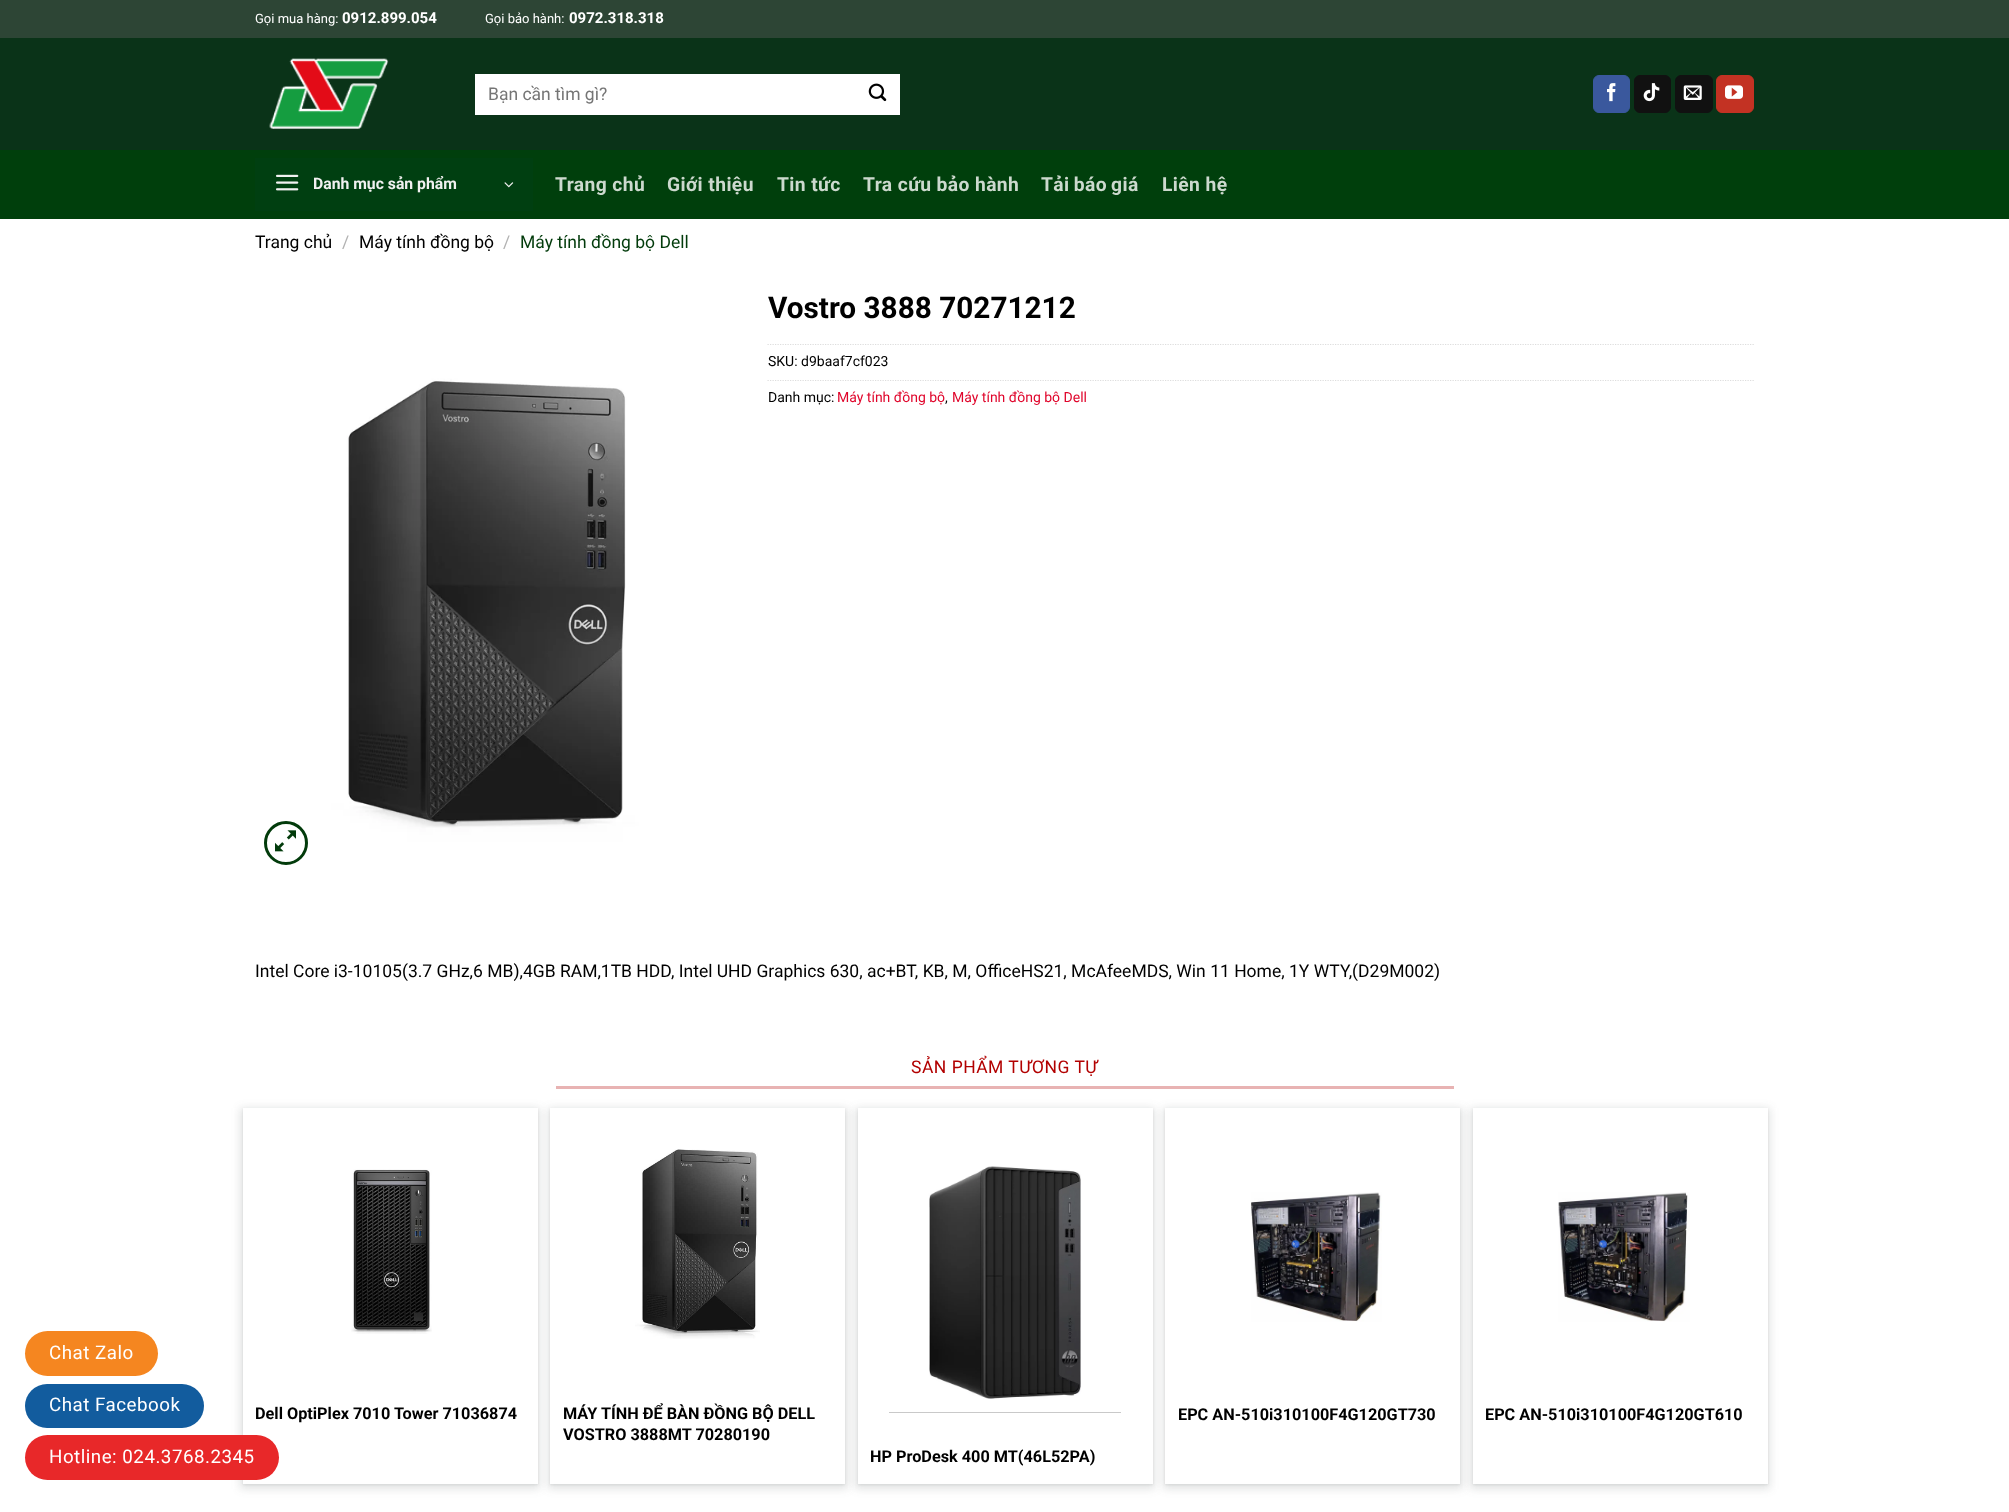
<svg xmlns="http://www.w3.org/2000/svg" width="2009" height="1512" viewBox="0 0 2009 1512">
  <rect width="100%" height="100%" fill="#fff"/>
  <rect x="25" y="1331" width="133" height="45" rx="22.5" fill="#f58620"/>
  <rect x="25" y="1384" width="179" height="44" rx="22" fill="#125c9e"/>
  <path d="M240 1108h300v381H240z" fill="#3c404326" filter="blur(4px)"/>
  <path d="M243 1109h295v376H243z" fill="#3c40431a" filter="blur(1px)"/>
  <path d="M243 1108h295v376H243z" fill="#fff"/>
  <rect x="25" y="1435" width="254" height="45" rx="22.5" fill="#e82829"/>
  <path d="M0 0h2009v38H0z" fill="#2d4535"/>
  <path d="M0 38h2009v112H0z" fill="#0a3318"/>
  <image x="269" y="58" width="120" height="71" href="img/1.png"/>
  <path d="M475 74h425v41H475z" fill="#fff"/>
  <image x="868" y="83" width="19" height="19" href="img/2.png"/>
  <rect x="1593.5" y="75.5" width="36" height="37" rx="5.5" fill="#3a589d" stroke="#3a589d"/>
  <image x="1607" y="83" width="9" height="19" href="img/3.png"/>
  <rect x="1634.5" y="75.5" width="36" height="37" rx="5.5" fill="#111" stroke="#111"/>
  <image x="1643" y="83" width="17" height="19" href="img/4.png"/>
  <rect x="1675.5" y="75.5" width="37" height="37" rx="5.5" fill="#111" stroke="#111"/>
  <image x="1683" y="85" width="19" height="15" href="img/5.png"/>
  <rect x="1716.5" y="75.5" width="37" height="37" rx="5.5" fill="#c33223" stroke="#c33223"/>
  <image x="1725" y="85" width="18" height="14" href="img/6.png"/>
  <path d="M0 150h2009v69H0z" fill="#003f0c"/>
  <path d="M255 158h278v53H255z" fill="#003f11"/>
  <image x="276" y="174" width="23" height="17" href="img/7.png"/>
  <image x="504" y="182" width="10" height="6" href="img/8.png"/>
  <image x="255" y="290" width="475" height="581" href="img/9.png"/>
  <circle cx="286" cy="843" r="20.5" fill="none" stroke="#023b0b" stroke-width="3"/>
  <image x="275" y="830" width="21" height="22" href="img/10.png"/>
  <path d="M767.5 344.5H1755" fill="none" stroke="#ddd" stroke-width="1.2" stroke-dasharray="1.25 1.25"/>
  <path d="M767.5 380.5H1755" fill="none" stroke="#ddd" stroke-width="1.2" stroke-dasharray="1.25 1.25"/>
  <path d="M556 1086h898v3H556z" fill="#e8b3b3"/>
  <image x="351" y="1169" width="81" height="165" href="img/11.png"/>
  <path d="M548 1108h300v381H548z" fill="#3c404326" filter="blur(4px)"/>
  <path d="M550 1109h295v376H550z" fill="#3c40431a" filter="blur(1px)"/>
  <path d="M550 1108h295v376H550z" fill="#fff"/>
  <image x="635" y="1149" width="125" height="190" href="img/12.png"/>
  <path d="M855 1108h300v381H855z" fill="#3c404326" filter="blur(4px)"/>
  <path d="M858 1109h295v376H858z" fill="#3c40431a" filter="blur(1px)"/>
  <path d="M858 1108h295v376H858z" fill="#fff"/>
  <path d="M1163 1108h300v381H1163z" fill="#3c404326" filter="blur(4px)"/>
  <path d="M1165 1109h295v376H1165z" fill="#3c40431a" filter="blur(1px)"/>
  <path d="M1165 1108h295v376H1165z" fill="#fff"/>
  <image x="1251" y="1192" width="131" height="130" href="img/13.png"/>
  <path d="M1470 1108h300v381H1470z" fill="#3c404326" filter="blur(4px)"/>
  <path d="M1473 1109h295v376H1473z" fill="#3c40431a" filter="blur(1px)"/>
  <path d="M1473 1108h295v376H1473z" fill="#fff"/>
  <image x="1558" y="1192" width="132" height="130" href="img/14.png"/>
  <path d="M889 1412h232v1H889z" fill="#929292"/>
  <image x="889" y="1139" width="232" height="274" href="img/15.png"/>
  <g font-family="Roboto" font-size="18.75" letter-spacing="0.5" fill="#fff">
    <text x="49" y="1359">Chat Zalo</text>
    <text x="49" y="1411">Chat Facebook</text>
    <text x="49" y="1463">Hotline: 024.3768.2345</text>
  </g>
  <text x="255" y="23" font-family="Roboto" font-size="13" fill="#fff">Gọi mua hàng:</text>
  <text x="342" y="23" font-family="Roboto" font-size="15" font-weight="bold" fill="#fff">0912.899.054</text>
  <text x="485" y="23" font-family="Roboto" font-size="13" fill="#fff">Gọi bảo hành:</text>
  <text x="569" y="23" font-family="Roboto" font-size="15" font-weight="bold" fill="#fff">0972.318.318</text>
  <text x="488" y="100" font-family="Roboto" font-size="17.5" fill="#757575">Bạn cần tìm gì?</text>
  <text x="313" y="189" font-family="Roboto" font-size="15.75" font-weight="bold" fill="#f1f1f1">Danh mục sản phẩm</text>
  <g font-family="Roboto" font-size="19.25" font-weight="bold" letter-spacing="0.4" fill="#ccd9ce">
    <text x="555" y="191">Trang chủ</text>
    <text x="667" y="191">Giới thiệu</text>
    <text x="777" y="191">Tin tức</text>
    <text x="863" y="191">Tra cứu bảo hành</text>
    <text x="1041" y="191" word-spacing="-1">Tải báo giá</text>
    <text x="1162" y="191">Liên hệ</text>
  </g>
  <text x="255" y="248" font-family="Roboto" font-size="17.5" fill="#000">Trang chủ</text>
  <text x="342" y="248" font-family="Roboto" font-size="17.5" fill="#b2b2b2">/</text>
  <text x="359" y="248" font-family="Roboto" font-size="17.5" fill="#000">Máy tính đồng bộ</text>
  <text x="503" y="248" font-family="Roboto" font-size="17.5" fill="#b2b2b2">/</text>
  <text x="520" y="248" font-family="Roboto" font-size="17.5" fill="#023b0b">Máy tính đồng bộ Dell</text>
  <text x="768" y="318" font-family="Roboto" font-size="29.75" font-weight="bold" fill="#000">Vostro 3888 70271212</text>
  <g font-family="Roboto" font-size="14" fill="#000">
    <text x="768" y="366">SKU: d9baaf7cf023</text>
    <text x="768" y="402">Danh mục:</text>
  </g>
  <text x="837" y="402" font-family="Roboto" font-size="14" fill="#e0052b">Máy tính đồng bộ</text>
  <text x="945" y="402" font-family="Roboto" font-size="14" fill="#000">,</text>
  <text x="952" y="402" font-family="Roboto" font-size="14" fill="#e0052b">Máy tính đồng bộ Dell</text>
  <text x="255" y="977" font-family="Roboto" font-size="17.5" fill="#000">Intel Core i3-10105(3.7 GHz,6 MB),4GB RAM,1TB HDD, Intel UHD Graphics 630, ac+BT, KB, M, OfficeHS21, McAfeeMDS, Win 11 Home, 1Y WTY,(D29M002)</text>
  <text x="911" y="1073" font-family="Roboto" font-size="17.5" letter-spacing="0.5" fill="#b20000">SẢN PHẨM TƯƠNG TỰ</text>
  <g font-family="Roboto" font-size="16.25" font-weight="bold" fill="#000">
    <text x="255" y="1419">Dell OptiPlex 7010 Tower 71036874</text>
    <text x="563" y="1419">MÁY TÍNH ĐỂ BÀN ĐỒNG BỘ DELL</text>
    <text x="563" y="1440">VOSTRO 3888MT 70280190</text>
    <text x="1178" y="1420">EPC AN-510i310100F4G120GT730</text>
    <text x="1485" y="1420">EPC AN-510i310100F4G120GT610</text>
    <text x="870" y="1462">HP ProDesk 400 MT(46L52PA)</text>
  </g>
</svg>
